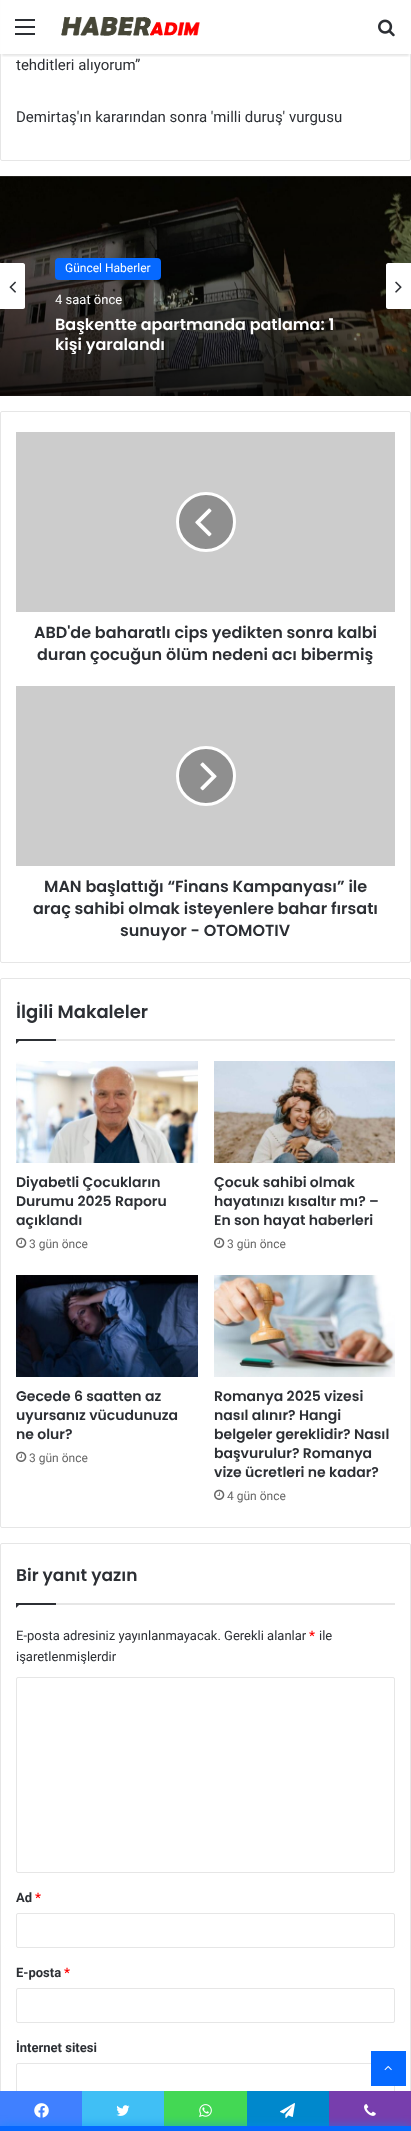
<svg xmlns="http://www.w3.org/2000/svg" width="411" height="2131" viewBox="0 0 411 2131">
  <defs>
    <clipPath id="clip1"><path d="M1 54h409v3H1z"/></clipPath>
    <clipPath id="clip2"><path d="M55 316h301v38H55z"/></clipPath>
  </defs>
  <rect width="100%" height="100%" fill="#fff"/>
  <rect x="0.5" y="-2.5" width="410" height="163" rx="1.5" fill="none" stroke="#e6e6e6"/>
  <g clip-path="url(#clip1)">
    <path d="M2 6h407v50H2z" fill="#0000001a" filter="blur(1px)"/>
  </g>
  <path d="M0 0h411v54H0z" fill="#fffffff2"/>
  <path d="M15 26h20v2H15z" fill="#2c2f34"/>
  <path d="M15 19h20v2H15z" fill="#2c2f34"/>
  <path d="M15 33h20v2H15z" fill="#2c2f34"/>
  <image x="61" y="16" width="139" height="20" href="img/1.png"/>
  <image x="378" y="19" width="17" height="18" href="img/2.png"/>
  <image x="0" y="176" width="411" height="220" href="img/5.png"/>
  <path d="M0 263H23C24 263 25 264 25 265V307C25 308 24 309 23 309H0Z" fill="#fff"/>
  <image x="9" y="281" width="7" height="12" href="img/3.png"/>
  <path d="M388 263H411V309H388C387 309 386 308 386 307V265C386 264 387 263 388 263Z" fill="#fff"/>
  <image x="395" y="281" width="7" height="12" href="img/4.png"/>
  <rect x="55" y="258" width="106" height="22" rx="4" fill="#0669ff"/>
  <rect x="0.5" y="411.5" width="410" height="551" rx="1.5" fill="none" stroke="#e6e6e6"/>
  <path d="M16 432h379v180H16z" fill="#ccc"/>
  <circle cx="206" cy="522" r="28.5" fill="#8f8f8f" stroke="#fff" stroke-width="3"/>
  <image x="195" y="508" width="17" height="29" href="img/6.png"/>
  <path d="M16 686h379v180H16z" fill="#ccc"/>
  <circle cx="206" cy="776" r="28.5" fill="#8f8f8f" stroke="#fff" stroke-width="3"/>
  <image x="200" y="762" width="17" height="29" href="img/7.png"/>
  <rect x="0.5" y="978.5" width="410" height="549" rx="1.5" fill="none" stroke="#e6e6e6"/>
  <path d="M56 1039h339v2H56z" fill="#e6e6e6"/>
  <path d="M16 1039H21L16 1044Z" fill="#2c2f34"/>
  <path d="M16 1039h40v2H16z" fill="#2c2f34"/>
  <image x="16" y="1061" width="182" height="102" href="img/8.png"/>
  <image x="16" y="1237" width="11" height="11" href="img/9.png"/>
  <image x="214" y="1061" width="181" height="102" href="img/10.png"/>
  <image x="214" y="1237" width="11" height="11" href="img/9.png"/>
  <image x="16" y="1275" width="182" height="102" href="img/11.png"/>
  <image x="16" y="1451" width="11" height="11" href="img/9.png"/>
  <image x="214" y="1275" width="181" height="102" href="img/12.png"/>
  <image x="214" y="1489" width="11" height="11" href="img/9.png"/>
  <rect x="0.5" y="1543.5" width="410" height="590" rx="1.5" fill="none" stroke="#e6e6e6"/>
  <path d="M56 1603h339v2H56z" fill="#e6e6e6"/>
  <path d="M16 1603H21L16 1608Z" fill="#2c2f34"/>
  <path d="M16 1603h40v2H16z" fill="#2c2f34"/>
  <rect x="16.5" y="1677.5" width="378" height="195" rx="1.5" fill="none" stroke="#e6e6e6"/>
  <rect x="16.5" y="1913.5" width="378" height="34" rx="1.5" fill="none" stroke="#e6e6e6"/>
  <rect x="16.5" y="1988.5" width="378" height="34" rx="1.5" fill="none" stroke="#e6e6e6"/>
  <rect x="16.5" y="2063.5" width="378" height="34" rx="1.5" fill="none" stroke="#e6e6e6"/>
  <path d="M371 2051h35v35H371z" fill="#0669ff"/>
  <image x="384" y="2065" width="8" height="6" href="img/13.png"/>
  <path d="M0 2091h82v35H0z" fill="#4080ff"/>
  <image x="34" y="2103" width="15" height="15" href="img/14.png"/>
  <path d="M82 2091h82v35H82z" fill="#40bff5"/>
  <image x="116" y="2105" width="14" height="11" href="img/15.png"/>
  <path d="M164 2091h83v35H164z" fill="#43d854"/>
  <image x="199" y="2104" width="13" height="13" href="img/16.png"/>
  <path d="M247 2091h82v35H247z" fill="#08c"/>
  <image x="280" y="2103" width="15" height="15" href="img/17.png"/>
  <path d="M329 2091h82v35H329z" fill="#773ead"/>
  <image x="364" y="2104" width="12" height="12" href="img/18.png"/>
  <path d="M0 2126h411v5H0z" fill="#0088ffb3" filter="blur(5px)"/>
  <path d="M0 2126h411v5H0z" fill="#0669ff"/>
  <g font-family="Roboto" font-size="15" fill="#2c2f34">
    <text x="16" y="70">tehditleri alıyorum”</text>
    <text x="16" y="122">Demirtaş'ın kararından sonra 'milli duruş' vurgusu</text>
  </g>
  <text x="65" y="272" font-family="Roboto" font-size="12" fill="#fff">Güncel Haberler</text>
  <text x="55" y="304" font-family="Roboto" font-size="13" fill="#fff">4 saat önce</text>
  <text x="55" y="330" font-family="Poppins" font-size="16" font-weight="600" fill="#fff">Başkentte apartmanda patlama: 1</text>
  <g clip-path="url(#clip2)">
    <text x="55" y="350" font-family="Poppins" font-size="16" font-weight="600" fill="#fff">kişi yaralandı</text>
  </g>
  <g font-family="Poppins" font-size="16" font-weight="600" fill="#2c2f34">
    <text x="34" y="638">ABD'de baharatlı cips yedikten sonra kalbi</text>
    <text x="37" y="660">duran çocuğun ölüm nedeni acı bibermiş</text>
    <text x="44" y="892">MAN başlattığı “Finans Kampanyası” ile</text>
    <text x="33" y="914">araç sahibi olmak isteyenlere bahar fırsatı</text>
    <text x="120" y="936">sunuyor - OTOMOTIV</text>
  </g>
  <text x="16" y="1018" font-family="Poppins" font-size="18" font-weight="600" fill="#2c2f34">İlgili Makaleler</text>
  <g font-family="Poppins" font-size="14" font-weight="600" fill="#2c2f34">
    <text x="16" y="1187">Diyabetli Çocukların</text>
    <text x="16" y="1206">Durumu 2025 Raporu</text>
    <text x="16" y="1225">açıklandı</text>
  </g>
  <text x="29" y="1248" font-family="Roboto" font-size="12" fill="#666">3 gün önce</text>
  <g font-family="Poppins" font-size="14" font-weight="600" fill="#2c2f34">
    <text x="214" y="1187">Çocuk sahibi olmak</text>
    <text x="214" y="1206">hayatınızı kısaltır mı? –</text>
    <text x="214" y="1225">En son hayat haberleri</text>
  </g>
  <text x="227" y="1248" font-family="Roboto" font-size="12" fill="#666">3 gün önce</text>
  <g font-family="Poppins" font-size="14" font-weight="600" fill="#2c2f34">
    <text x="16" y="1401">Gecede 6 saatten az</text>
    <text x="16" y="1420">uyursanız vücudunuza</text>
    <text x="16" y="1439">ne olur?</text>
  </g>
  <text x="29" y="1462" font-family="Roboto" font-size="12" fill="#666">3 gün önce</text>
  <g font-family="Poppins" font-size="14" font-weight="600" fill="#2c2f34">
    <text x="214" y="1401">Romanya 2025 vizesi</text>
    <text x="214" y="1420">nasıl alınır? Hangi</text>
    <text x="214" y="1439">belgeler gereklidir? Nasıl</text>
    <text x="214" y="1458">başvurulur? Romanya</text>
    <text x="214" y="1477">vize ücretleri ne kadar?</text>
  </g>
  <text x="227" y="1500" font-family="Roboto" font-size="12" fill="#666">4 gün önce</text>
  <text x="16" y="1581" font-family="Poppins" font-size="17" font-weight="600" fill="#2c2f34">Bir yanıt yazın</text>
  <text x="16" y="1640" font-family="Roboto" font-size="13" fill="#2c2f34">E-posta adresiniz yayınlanmayacak. Gerekli alanlar</text>
  <text x="309" y="1640" font-family="Roboto" font-size="13" font-weight="bold" fill="#f00">*</text>
  <g font-family="Roboto" font-size="13" fill="#2c2f34">
    <text x="319" y="1640">ile</text>
    <text x="16" y="1661">işaretlenmişlerdir</text>
  </g>
  <text x="16" y="1902" font-family="Roboto" font-size="13" font-weight="bold" fill="#2c2f34">Ad</text>
  <text x="35" y="1902" font-family="Roboto" font-size="13" font-weight="bold" fill="#f00">*</text>
  <text x="16" y="1977" font-family="Roboto" font-size="13" font-weight="bold" fill="#2c2f34">E-posta</text>
  <text x="64" y="1977" font-family="Roboto" font-size="13" font-weight="bold" fill="#f00">*</text>
  <text x="16" y="2052" font-family="Roboto" font-size="13" font-weight="bold" fill="#2c2f34">İnternet sitesi</text>
</svg>
